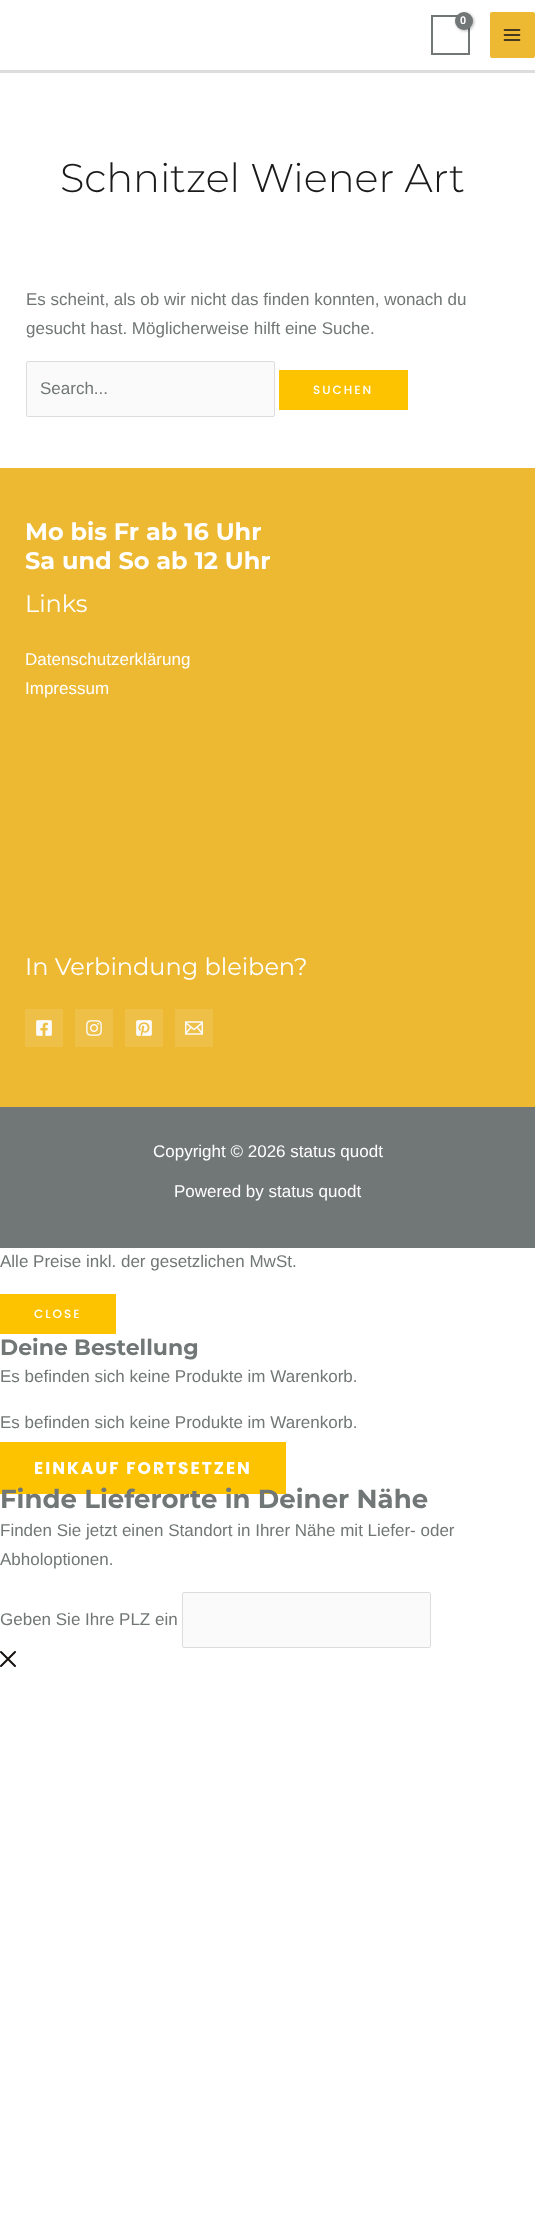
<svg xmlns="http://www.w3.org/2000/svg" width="535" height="2230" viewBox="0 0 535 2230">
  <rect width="100%" height="100%" fill="#fff"/>
  <path d="M0 70h535v3H0z" fill="#ddd"/>
  <path d="M432 16h37v38H432z" fill="none" stroke="#717776" stroke-width="2"/>
  <rect x="456" y="13" width="18" height="18" rx="9" fill="#0000004d" filter="blur(1.5px)"/>
  <circle cx="464" cy="21" r="9" fill="#717776"/>
  <rect x="490" y="12" width="45" height="46" rx="2" fill="#edb932"/>
  <image x="503" y="29" width="18" height="12" href="img/1.png"/>
  <rect x="26.5" y="361.5" width="248" height="55" rx="1.5" fill="#fafafa" stroke="#ddd"/>
  <path d="M279 370h129v40H279z" fill="#fdc300"/>
  <path d="M0 468h535v639H0z" fill="#edb932"/>
  <path d="M25 1009h38v38H25z" fill="#efc047"/>
  <image x="36" y="1020" width="16" height="16" href="img/2.png"/>
  <path d="M75 1009h38v38H75z" fill="#efc047"/>
  <image x="86" y="1020" width="16" height="16" href="img/3.png"/>
  <path d="M125 1009h38v38H125z" fill="#efc047"/>
  <image x="136" y="1020" width="16" height="16" href="img/4.png"/>
  <path d="M175 1009h38v38H175z" fill="#efc047"/>
  <image x="185" y="1021" width="18" height="14" href="img/5.png"/>
  <path d="M0 1107h535v141H0z" fill="#717776"/>
  <path d="M0 1294h116v40H0z" fill="#fdc300"/>
  <path d="M0 1442h286v52H0z" fill="#fdc300"/>
  <rect x="182.5" y="1592.5" width="248" height="55" rx="1.5" fill="#fafafa" stroke="#ddd"/>
  <path d="M15 1652L1 1666M15 1666L1 1652" fill="none" stroke="#16110e" stroke-width="2" stroke-linecap="round" stroke-linejoin="round"/>
  <text x="460" y="24" font-family="Liberation Sans" font-size="11" font-weight="bold" fill="#fff">0</text>
  <text x="60" y="192" font-family="Montserrat" font-size="40" font-weight="300" fill="#1a1a1a">Schnitzel Wiener Art</text>
  <g font-family="Liberation Sans" font-size="17" fill="#717776">
    <text x="26" y="305">Es scheint, als ob wir nicht das finden konnten, wonach du</text>
    <text x="26" y="334">gesucht hast. Möglicherweise hilft eine Suche.</text>
    <text x="40" y="394">Search...</text>
  </g>
  <text x="313" y="394" font-family="Poppins" font-size="12" font-weight="500" letter-spacing="2" fill="#fff">SUCHEN</text>
  <g font-family="Montserrat" font-size="24" font-weight="bold" fill="#fff">
    <text x="25" y="540">Mo bis Fr ab 16 Uhr</text>
    <text x="25" y="569">Sa und So ab 12 Uhr</text>
  </g>
  <text x="25" y="612" font-family="Montserrat" font-size="24" fill="#fff">Links</text>
  <g font-family="Liberation Sans" font-size="17" fill="#fff">
    <text x="25" y="665">Datenschutzerklärung</text>
    <text x="25" y="694">Impressum</text>
  </g>
  <text x="25" y="975" font-family="Montserrat" font-size="24" fill="#fff">In Verbindung bleiben?</text>
  <g font-family="Liberation Sans" font-size="17" fill="#fff">
    <text x="153" y="1157">Copyright © 2026 status quodt</text>
    <text x="174" y="1197">Powered by status quodt</text>
  </g>
  <text x="0" y="1267" font-family="Liberation Sans" font-size="17" fill="#717776">Alle Preise inkl. der gesetzlichen MwSt.</text>
  <text x="34" y="1318" font-family="Poppins" font-size="12" font-weight="500" letter-spacing="2" fill="#fff">CLOSE</text>
  <text x="0" y="1355" font-family="Montserrat" font-size="22" font-weight="bold" fill="#717776">Deine Bestellung</text>
  <g font-family="Liberation Sans" font-size="17" fill="#717776">
    <text x="0" y="1382">Es befinden sich keine Produkte im Warenkorb.</text>
    <text x="0" y="1428">Es befinden sich keine Produkte im Warenkorb.</text>
  </g>
  <text x="34" y="1474" font-family="Poppins" font-size="17" font-weight="bold" letter-spacing="2" fill="#fff">EINKAUF FORTSETZEN</text>
  <text x="0" y="1508" font-family="Montserrat" font-size="26" font-weight="bold" fill="#717776">Finde Lieferorte in Deiner Nähe</text>
  <g font-family="Liberation Sans" font-size="17" fill="#717776">
    <text x="0" y="1536">Finden Sie jetzt einen Standort in Ihrer Nähe mit Liefer- oder</text>
    <text x="0" y="1565">Abholoptionen.</text>
    <text x="0" y="1625">Geben Sie Ihre PLZ ein</text>
  </g>
</svg>
